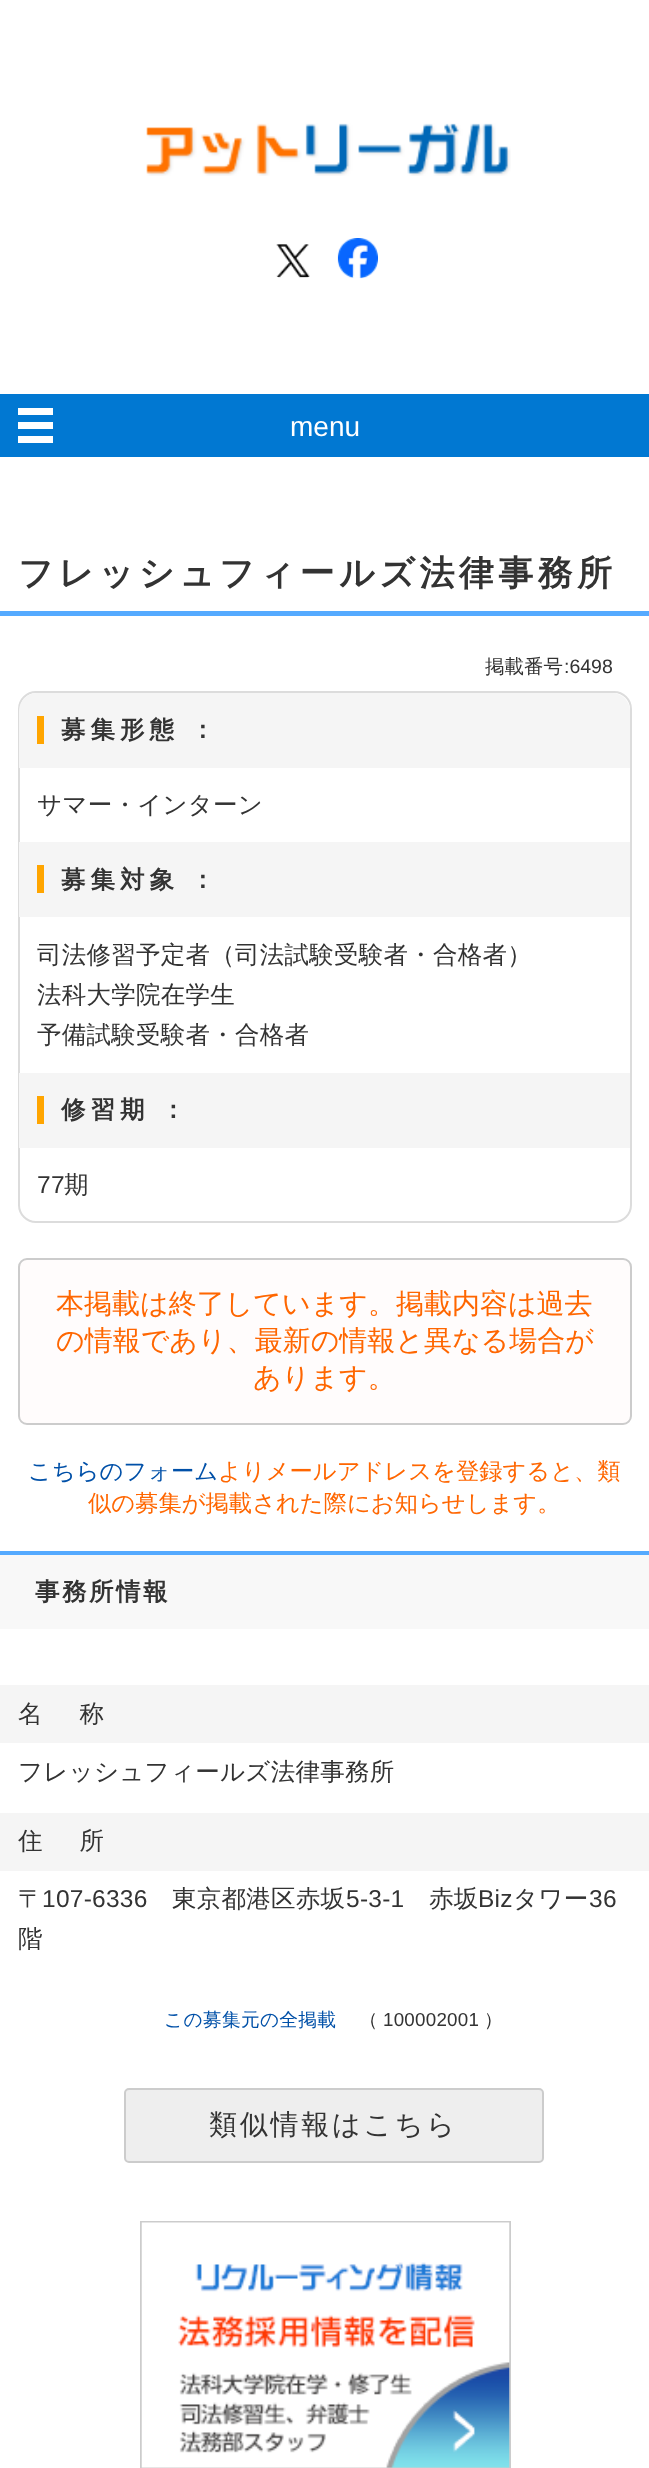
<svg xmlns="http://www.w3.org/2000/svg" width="649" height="2468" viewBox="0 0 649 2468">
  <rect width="100%" height="100%" fill="#fff"/>
  <image x="146" y="123" width="365" height="53" href="img/1.png"/>
  <image x="276" y="244" width="34" height="34" href="img/2.png"/>
  <image x="337" y="238" width="41" height="41" href="img/3.png"/>
  <path d="M0 394h649v63H0z" fill="#0178d2"/>
  <path d="M18 408h35v35H18z" fill="#fff"/>
  <path d="M18 415h35v7H18z" fill="#0178d2"/>
  <path d="M18 429h35v7H18z" fill="#0178d2"/>
  <path d="M0 611h649v5H0z" fill="#5af"/>
  <rect x="19" y="692" width="612" height="530" rx="17" fill="none" stroke="#dcdcdc" stroke-width="2"/>
  <path d="M37 693H612C622 693 630 701 630 711V768H19V711C19 701 27 693 37 693Z" fill="#f5f5f5"/>
  <path d="M37 716h7v28H37z" fill="#ffa500"/>
  <path d="M19 842h611v75H19z" fill="#f5f5f5"/>
  <path d="M37 865h7v28H37z" fill="#ffa500"/>
  <path d="M19 1073h611v75H19z" fill="#f5f5f5"/>
  <path d="M37 1096h7v28H37z" fill="#ffa500"/>
  <rect x="19" y="1259" width="612" height="165" rx="8" fill="#fffcfc" stroke="#ccc" stroke-width="2"/>
  <path d="M0 1555h649v74H0z" fill="#f8f8f8"/>
  <path d="M0 1551h649v4H0z" fill="#5af"/>
  <path d="M0 1685h649v58H0z" fill="#f5f5f5"/>
  <path d="M0 1813h649v58H0z" fill="#f5f5f5"/>
  <rect x="125" y="2089" width="418" height="73" rx="4" fill="#eee" stroke="#ccc" stroke-width="2"/>
  <path d="M141 2222h369v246H141z" fill="none" stroke="#ccc" stroke-width="2"/>
  <image x="141" y="2222" width="369" height="246" href="img/4.png"/>
  <text x="290" y="436" font-family="Liberation Sans" font-size="28" fill="#fff">menu</text>
  <text x="18" y="585" font-family="WenQuanYi Zen Hei" font-size="35" font-weight="bold" letter-spacing="4.4" fill="#333">フレッシュフィールズ法律事務所</text>
  <text x="485" y="673" font-family="WenQuanYi Zen Hei" font-size="19.5" font-weight="500" fill="#333">掲載番号</text>
  <text x="564" y="673" font-family="Liberation Sans" font-size="19.5" fill="#333">:6498</text>
  <text x="61" y="738" word-spacing="-1" font-family="WenQuanYi Zen Hei" font-size="24.5" font-weight="bold" letter-spacing="5" fill="#333">募集形態 ：</text>
  <text x="37" y="813" font-family="WenQuanYi Zen Hei" font-size="24.5" font-weight="500" letter-spacing="0.25" fill="#333">サマー・インターン</text>
  <text x="61" y="888" word-spacing="-1" font-family="WenQuanYi Zen Hei" font-size="24.5" font-weight="bold" letter-spacing="5" fill="#333">募集対象 ：</text>
  <g font-family="WenQuanYi Zen Hei" font-size="24.5" font-weight="500" letter-spacing="0.25" fill="#333">
    <text x="37" y="963">司法修習予定者（司法試験受験者・合格者）</text>
    <text x="37" y="1003">法科大学院在学生</text>
    <text x="37" y="1043">予備試験受験者・合格者</text>
  </g>
  <text x="61" y="1118" word-spacing="-1" font-family="WenQuanYi Zen Hei" font-size="24.5" font-weight="bold" letter-spacing="5" fill="#333">修習期 ：</text>
  <text x="37" y="1193" font-family="Liberation Sans" font-size="24.5" letter-spacing="0.25" fill="#333">77</text>
  <text x="64" y="1193" font-family="WenQuanYi Zen Hei" font-size="24.5" font-weight="500" letter-spacing="0.25" fill="#333">期</text>
  <g font-family="WenQuanYi Zen Hei" font-size="28" font-weight="500" fill="#f60">
    <text x="56" y="1313">本掲載は終了しています。掲載内容は過去</text>
    <text x="56" y="1350">の情報であり、最新の情報と異なる場合が</text>
    <text x="253" y="1387">あります。</text>
  </g>
  <text x="28" y="1479" font-family="WenQuanYi Zen Hei" font-size="23.3" font-weight="500" fill="#0050a8">こちらのフォーム</text>
  <g font-family="WenQuanYi Zen Hei" font-size="23.3" font-weight="500" fill="#f60">
    <text x="218" y="1479">よりメールアドレスを登録すると、類</text>
    <text x="88" y="1511">似の募集が掲載された際にお知らせします。</text>
  </g>
  <text x="35" y="1600" font-family="WenQuanYi Zen Hei" font-size="24.5" font-weight="bold" letter-spacing="2.5" fill="#333">事務所情報</text>
  <text x="18" y="1722" font-family="WenQuanYi Zen Hei" font-size="24.5" font-weight="500" letter-spacing="37" fill="#333">名称</text>
  <text x="18" y="1780" font-family="WenQuanYi Zen Hei" font-size="24.5" font-weight="500" letter-spacing="0.25" fill="#333">フレッシュフィールズ法律事務所</text>
  <text x="18" y="1849" font-family="WenQuanYi Zen Hei" font-size="24.5" font-weight="500" letter-spacing="37" fill="#333">住所</text>
  <text x="18" y="1907" font-family="WenQuanYi Zen Hei" font-size="24.5" font-weight="500" letter-spacing="0.25" fill="#333">〒</text>
  <text x="42" y="1907" font-family="Liberation Sans" font-size="24.5" letter-spacing="0.25" fill="#333">107-6336</text>
  <text x="172" y="1907" font-family="WenQuanYi Zen Hei" font-size="24.5" font-weight="500" letter-spacing="0.25" fill="#333">東京都港区赤坂</text>
  <text x="346" y="1907" font-family="Liberation Sans" font-size="24.5" letter-spacing="0.25" fill="#333">5-3-1</text>
  <text x="429" y="1907" font-family="WenQuanYi Zen Hei" font-size="24.5" font-weight="500" letter-spacing="0.25" fill="#333">赤坂</text>
  <text x="478" y="1907" font-family="Liberation Sans" font-size="24.5" letter-spacing="0.25" fill="#333">Biz</text>
  <text x="513" y="1907" font-family="WenQuanYi Zen Hei" font-size="24.5" font-weight="500" letter-spacing="0.25" fill="#333">タワー</text>
  <text x="589" y="1907" font-family="Liberation Sans" font-size="24.5" letter-spacing="0.25" fill="#333">36</text>
  <text x="18" y="1947" font-family="WenQuanYi Zen Hei" font-size="24.5" font-weight="500" letter-spacing="0.25" fill="#333">階</text>
  <text x="164" y="2026" font-family="WenQuanYi Zen Hei" font-size="18.75" font-weight="500" letter-spacing="0.25" fill="#0050a8">この募集元の全掲載</text>
  <text x="359" y="2026" font-family="WenQuanYi Zen Hei" font-size="18.75" font-weight="500" letter-spacing="0.25" fill="#333">（</text>
  <text x="383" y="2026" font-family="Liberation Sans" font-size="18.75" letter-spacing="0.25" fill="#333">100002001</text>
  <text x="484" y="2026" font-family="WenQuanYi Zen Hei" font-size="18.75" font-weight="500" letter-spacing="0.25" fill="#333">）</text>
  <text x="209" y="2134" font-family="WenQuanYi Zen Hei" font-size="28" font-weight="500" letter-spacing="2.75" fill="#333">類似情報はこちら</text>
</svg>
